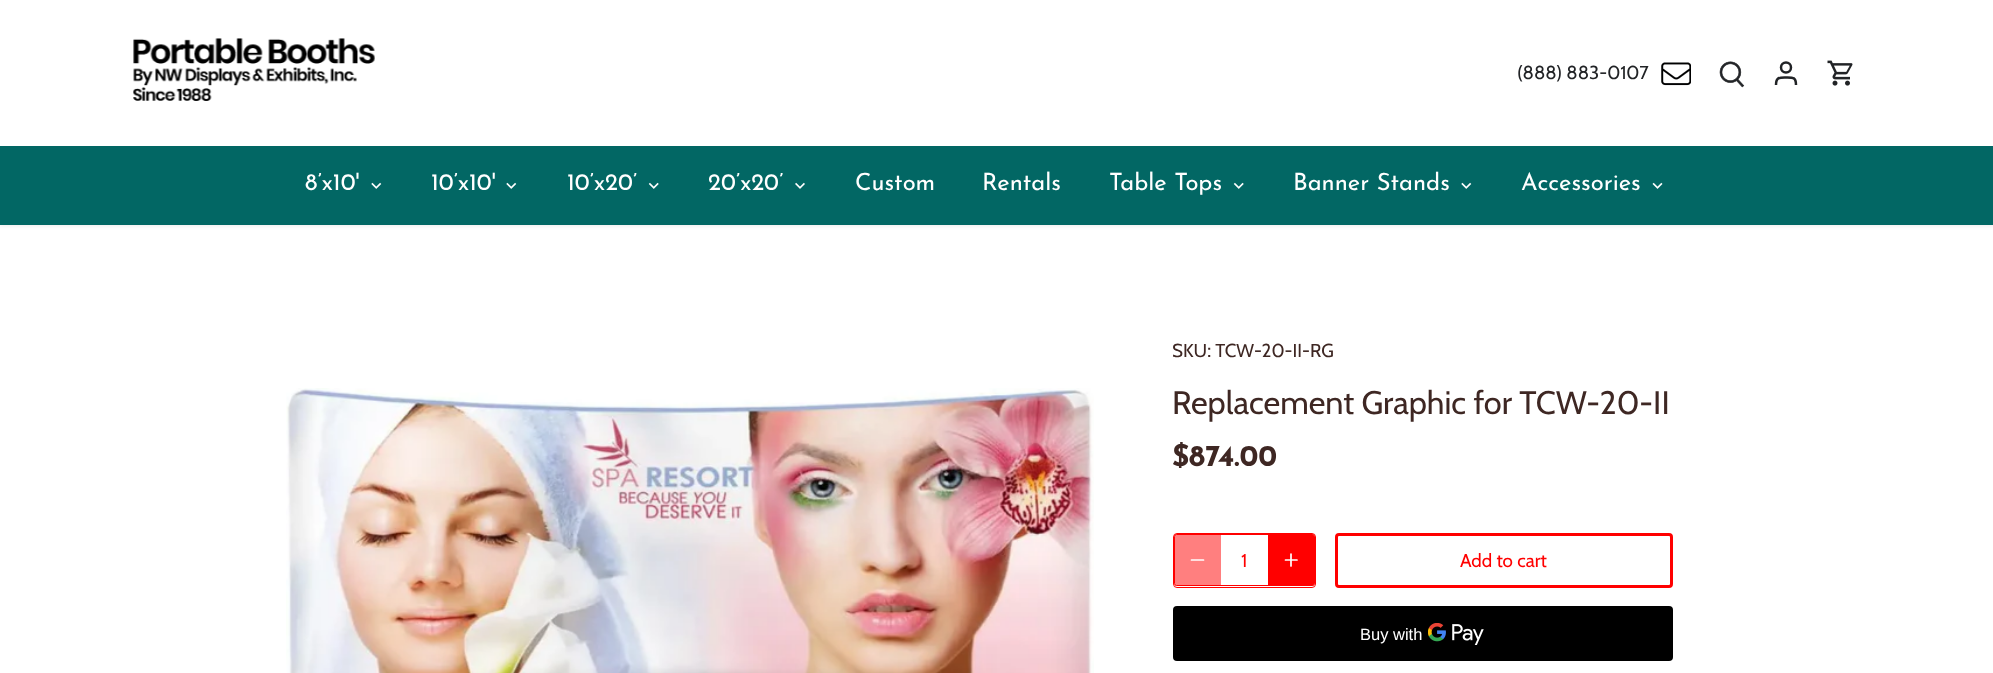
<svg xmlns="http://www.w3.org/2000/svg" width="1993" height="673" viewBox="0 0 1993 673">
  <rect width="100%" height="100%" fill="#fff"/>
  <path d="M-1 -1h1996v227H-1z" fill="#00000014" filter="blur(2px)"/>
  <path d="M0 146h1993v79H0z" fill="#026764"/>
  <path d="M0 0h1993v146H0z" fill="#fff"/>
  <image x="133" y="38" width="242" height="63" href="img/1.png"/>
  <image x="1661" y="62" width="30" height="24" href="img/2.png"/>
  <image x="1719" y="61" width="26" height="27" href="img/3.png"/>
  <circle cx="1786" cy="67.5" r="5" fill="none" stroke="#212326" stroke-width="2.5"/>
  <path d="M1796 85C1796 77 1793 77.5 1786 77.5C1779.5 77.5 1776 77 1776 85" fill="none" stroke="#212326" stroke-width="2.5"/>
  <image x="1827" y="60" width="26" height="26" href="img/4.png"/>
  <image x="371" y="182" width="11" height="7" href="img/5.png"/>
  <image x="506" y="182" width="11" height="7" href="img/5.png"/>
  <image x="648" y="182" width="11" height="7" href="img/6.png"/>
  <image x="795" y="182" width="10" height="7" href="img/7.png"/>
  <image x="1233" y="182" width="11" height="7" href="img/6.png"/>
  <image x="1461" y="182" width="11" height="7" href="img/5.png"/>
  <image x="1652" y="182" width="11" height="7" href="img/8.png"/>
  <image x="286" y="388" width="808" height="285" href="img/9.png"/>
  <rect x="1174.5" y="534.5" width="140" height="51" rx="2" fill="none" stroke="#f00"/>
  <rect x="1173.5" y="533.5" width="142" height="54" rx="3.5" fill="none" stroke="#f00"/>
  <path d="M1178 534H1221V586H1178C1176 586 1174 584 1174 582V538C1174 536 1176 534 1178 534Z" fill="#ff000080"/>
  <path d="M1191.5 560H1203.5" fill="none" stroke="#fff" stroke-width="1.7" stroke-linecap="round" stroke-linejoin="round"/>
  <path d="M1268 534H1311C1313 534 1315 536 1315 538V582C1315 584 1313 586 1311 586H1268Z" fill="#f00"/>
  <path d="M1291 554V566M1285.5 560H1297" fill="none" stroke="#fff" stroke-width="1.7" stroke-linecap="round" stroke-linejoin="round"/>
  <rect x="1336.5" y="534.5" width="335" height="52" rx="2.5" fill="none" stroke="#f00" stroke-width="3"/>
  <rect x="1173" y="606" width="500" height="55" rx="4" fill="#000"/>
  <image x="1428" y="623" width="56" height="22" href="img/10.png"/>
  <text x="1517" y="79" font-family="Cabin" font-size="18.75" fill="#212326">(888) 883-0107</text>
  <g font-family="Josefin Sans" font-size="23.75" fill="#fff">
    <text x="305" y="190">8’x10'</text>
    <text x="431" y="190">10’x10'</text>
    <text x="567" y="190">10’x20’</text>
    <text x="708" y="190">20’x20’</text>
    <text x="855" y="190">Custom</text>
    <text x="982" y="190">Rentals</text>
    <text x="1109" y="190">Table Tops</text>
    <text x="1293" y="190">Banner Stands</text>
    <text x="1521" y="190">Accessories</text>
  </g>
  <text x="1172" y="357" font-family="Cabin" font-size="18.75" fill="#3e2723">SKU: TCW-20-II-RG</text>
  <text x="1172" y="414" font-family="Cabin" font-size="32.5" fill="#3e2723">Replacement Graphic for TCW-20-II</text>
  <text x="1172" y="466" font-family="Josefin Sans" font-size="30" font-weight="bold" fill="#3e2723">$874.00</text>
  <g font-family="Cabin" font-size="18.75" fill="#f00">
    <text x="1241" y="567">1</text>
    <text x="1460" y="567">Add to cart</text>
  </g>
  <text x="1360" y="640" font-family="Liberation Sans" font-size="16.5" fill="#fff">Buy with</text>
</svg>
